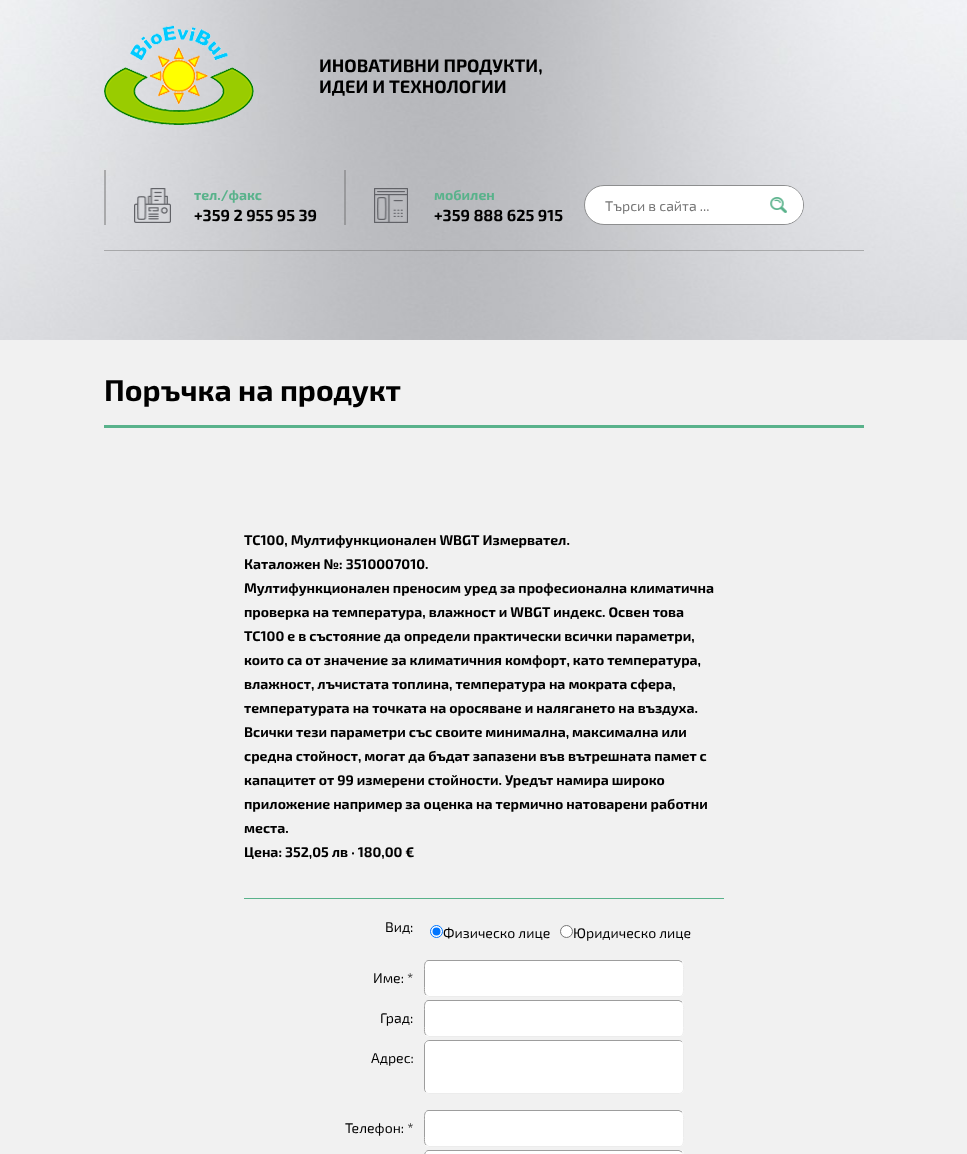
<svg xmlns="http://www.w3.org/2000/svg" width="967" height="1154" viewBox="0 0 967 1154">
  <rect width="100%" height="100%" fill="#f1f1f1"/>
  <image x="0" y="0" width="967" height="340" href="img/1.png"/>
  <image x="104" y="25" width="150" height="100" href="img/2.png"/>
  <path d="M104 170h2v55H104z" fill="#7171717a"/>
  <image x="134" y="188" width="37" height="35" href="img/3.png"/>
  <path d="M344 170h2v55H344z" fill="#7171717a"/>
  <image x="374" y="188" width="34" height="35" href="img/4.png"/>
  <rect x="584.5" y="185.5" width="219" height="39" rx="19.5" fill="#fff" stroke="#8d8e8f"/>
  <path d="M765 186H784C794.5 186 803 194.5 803 205C803 215.5 794.5 224 784 224H765Z" fill="#fff"/>
  <image x="770" y="197" width="17" height="16" href="img/5.png"/>
  <path d="M104 250h760v1H104z" fill="#7171717a"/>
  <path d="M104 425h760v3H104z" fill="#59b28b"/>
  <path d="M244 898h480v1H244z" fill="#59b28b"/>
  <circle cx="436.5" cy="931.5" r="6" fill="#fff" stroke="#0075ff"/>
  <circle cx="436.5" cy="931.5" r="4" fill="#0075ff"/>
  <circle cx="566.5" cy="931.5" r="6" fill="#fff" stroke="#767676"/>
  <rect x="424" y="960" width="260" height="37" rx="5" fill="#fff"/>
  <path d="M682 962C684 964 683.5 967 683.5 969.5V987.5C683.5 991 684 995.5 680 996.5H429L426 995" fill="none" stroke="#ececec"/>
  <path d="M426 995C424 993 424.5 990 424.5 987.5V969.5C424.5 966 424 961.5 428 960.5H679L682 962" fill="none" stroke="#9d9d9d"/>
  <rect x="424" y="1000" width="260" height="37" rx="5" fill="#fff"/>
  <path d="M682 1002C684 1004 683.5 1007 683.5 1009.5V1027.5C683.5 1031 684 1035.5 680 1036.5H429L426 1035" fill="none" stroke="#ececec"/>
  <path d="M426 1035C424 1033 424.5 1030 424.5 1027.5V1009.5C424.5 1006 424 1001.5 428 1000.5H679L682 1002" fill="none" stroke="#9d9d9d"/>
  <rect x="424" y="1040" width="260" height="54" rx="5" fill="#fff"/>
  <path d="M682 1042C683 1042.5 683.5 1044 683.5 1045V1089C683.5 1090 683 1091.5 682 1092C681.5 1093 680 1093.5 679 1093.5H429C428 1093.5 426.5 1093 426 1092" fill="none" stroke="#ececec"/>
  <path d="M426 1092C425 1091.5 424.5 1090 424.5 1089V1045C424.5 1044 425 1042.5 426 1042C426.5 1041 428 1040.5 429 1040.5H679C680 1040.5 681.5 1041 682 1042" fill="none" stroke="#9d9d9d"/>
  <rect x="424" y="1110" width="260" height="37" rx="5" fill="#fff"/>
  <path d="M682 1112C684 1114 683.5 1117 683.5 1119.5V1137.5C683.5 1141 684 1145.5 680 1146.5H429L426 1145" fill="none" stroke="#ececec"/>
  <path d="M426 1145C424 1143 424.5 1140 424.5 1137.5V1119.5C424.5 1116 424 1111.5 428 1110.5H679L682 1112" fill="none" stroke="#9d9d9d"/>
  <rect x="424" y="1150" width="260" height="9" rx="5" fill="#fff"/>
  <path d="M682 1152C684 1154 683.5 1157 683.5 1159.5V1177.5C683.5 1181 684 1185.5 680 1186.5H429L426 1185" fill="none" stroke="#ececec"/>
  <path d="M426 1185C424 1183 424.5 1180 424.5 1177.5V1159.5C424.5 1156 424 1151.5 428 1150.5H679L682 1152" fill="none" stroke="#9d9d9d"/>
  <g font-family="'Exo 2'" font-size="18" font-weight="bold" fill="#000">
    <text x="319" y="72">ИНОВАТИВНИ ПРОДУКТИ,</text>
    <text x="319" y="93">ИДЕИ И ТЕХНОЛОГИИ</text>
  </g>
  <text x="194" y="200" font-family="'Exo 2'" font-size="14" font-weight="bold" fill="#59b28b">тел./факс</text>
  <text x="194" y="221" font-family="'Exo 2'" font-size="16" font-weight="bold" fill="#000">+359 2 955 95 39</text>
  <text x="434" y="200" font-family="'Exo 2'" font-size="14" font-weight="bold" fill="#59b28b">мобилен</text>
  <text x="434" y="221" font-family="'Exo 2'" font-size="16" font-weight="bold" fill="#000">+359 888 625 915</text>
  <text x="605" y="211" font-family="'Exo 2'" font-size="14" fill="#757575">Търси в сайта ...</text>
  <text x="104" y="401" font-family="'Exo 2'" font-size="30" font-weight="bold" fill="#000">Поръчка на продукт</text>
  <g font-family="'Exo 2'" font-size="14" font-weight="bold" fill="#000">
    <text x="244" y="545">TC100, Мултифункционален WBGT Измервател.</text>
    <text x="244" y="569">Каталожен №: 3510007010.</text>
    <text x="244" y="593">Мултифункционален преносим уред за професионална климатична</text>
    <text x="244" y="617">проверка на температура, влажност и WBGT индекс. Освен това</text>
    <text x="244" y="641">TC100 е в състояние да определи практически всички параметри,</text>
    <text x="244" y="665">които са от значение за климатичния комфорт, като температура,</text>
    <text x="244" y="689">влажност, лъчистата топлина, температура на мократа сфера,</text>
    <text x="244" y="713">температурата на точката на оросяване и налягането на въздуха.</text>
    <text x="244" y="737">Всички тези параметри със своите минимална, максимална или</text>
    <text x="244" y="761">средна стойност, могат да бъдат запазени във вътрешната памет с</text>
    <text x="244" y="785">капацитет от 99 измерени стойности. Уредът намира широко</text>
    <text x="244" y="809">приложение например за оценка на термично натоварени работни</text>
    <text x="244" y="833">места.</text>
    <text x="244" y="857">Цена: 352,05 лв · 180,00 €</text>
  </g>
  <g font-family="'Exo 2'" font-size="14" fill="#000">
    <text x="385" y="932">Вид:</text>
    <text x="443" y="938">Физическо лице</text>
    <text x="573" y="938">Юридическо лице</text>
    <text x="373" y="983">Име: *</text>
    <text x="380" y="1023">Град:</text>
    <text x="371" y="1063">Адрес:</text>
    <text x="345" y="1133">Телефон: *</text>
  </g>
</svg>
